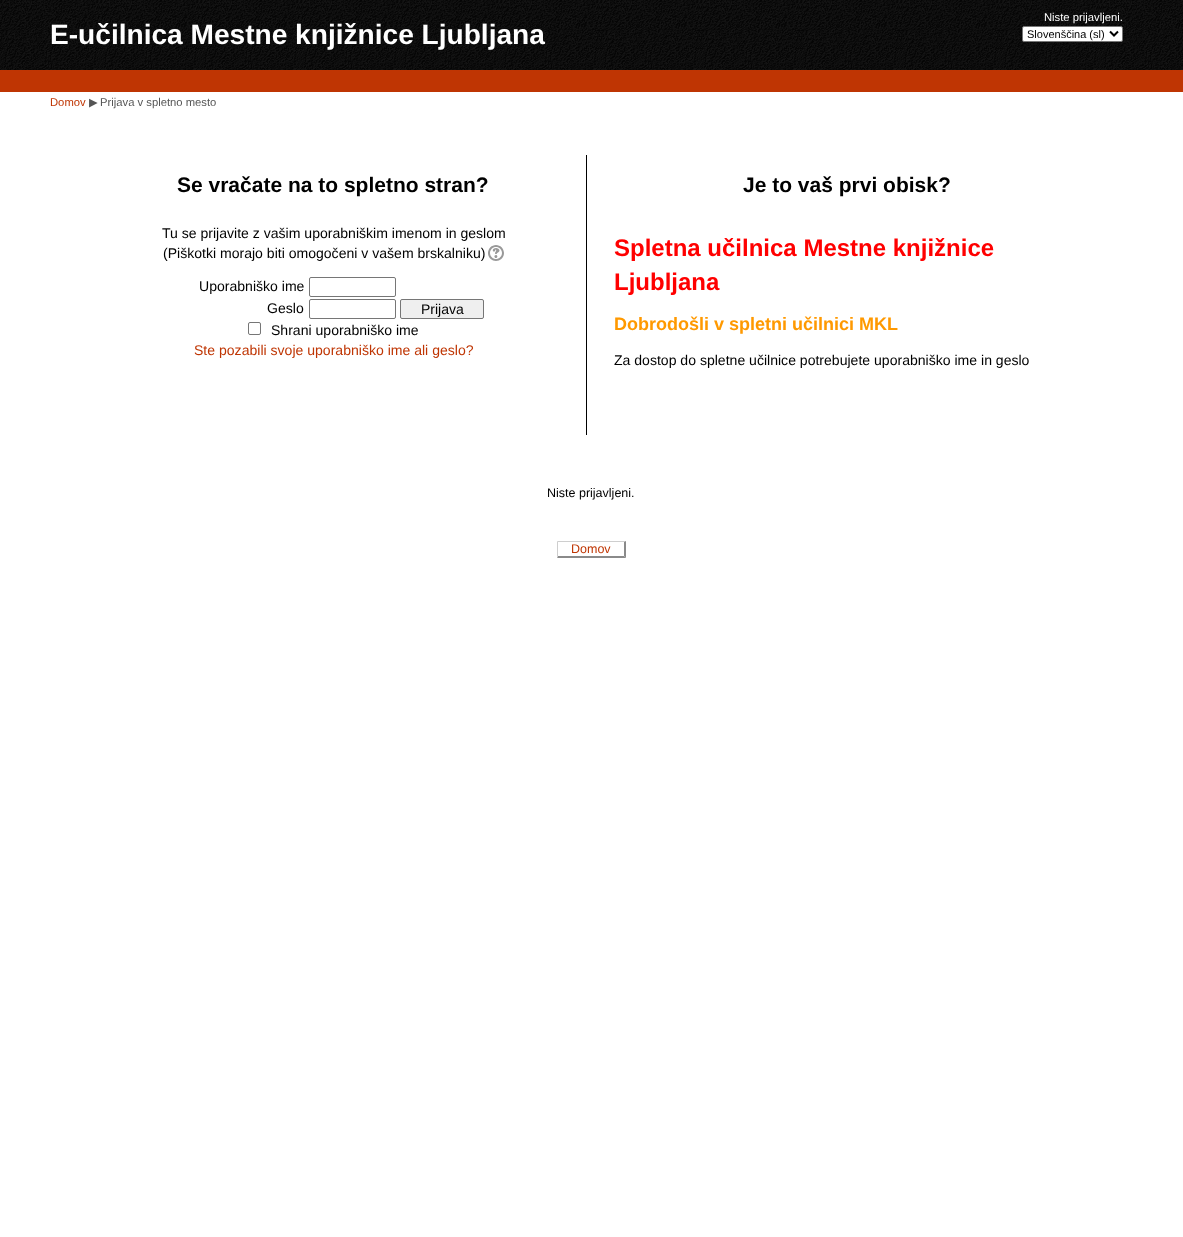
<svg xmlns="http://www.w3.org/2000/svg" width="1183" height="1237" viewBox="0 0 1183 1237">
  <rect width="100%" height="100%" fill="#fff"/>
  <image x="0" y="0" width="1183" height="70" href="img/1.png"/>
  <rect x="1022.5" y="26.5" width="100" height="15" rx="1.5" fill="#fff" stroke="#767676"/>
  <path d="M1110 31.5L1114 35.5L1118 31.5" fill="none" stroke="#000" stroke-width="2"/>
  <path d="M0 70h1183v22H0z" fill="#bf3503"/>
  <path d="M586 155h1v280H586z" fill="#000"/>
  <image x="488" y="245" width="16" height="16" href="img/2.png"/>
  <rect x="309.5" y="277.5" width="86" height="19" rx="1.5" fill="none" stroke="#767676"/>
  <rect x="309.5" y="299.5" width="86" height="19" rx="1.5" fill="none" stroke="#767676"/>
  <rect x="400.5" y="299.5" width="83" height="19" rx="1.5" fill="#efefef" stroke="#767676"/>
  <rect x="248.5" y="322.5" width="12" height="12" rx="1.5" fill="none" stroke="#767676"/>
  <path d="M557 541H626L624 542H558Z" fill="#cecece"/>
  <path d="M626 541V558L624 556V542Z" fill="#8a8a8a"/>
  <path d="M626 558H557L558 556H624Z" fill="#8a8a8a"/>
  <path d="M557 558V541L558 542V556Z" fill="#cecece"/>
  <text x="50" y="44" font-family="Liberation Sans" font-size="28.1" font-weight="bold" fill="#fff">E-učilnica Mestne knjižnice Ljubljana</text>
  <text x="1044" y="21" font-family="Liberation Sans" font-size="11.25" fill="#fff">Niste prijavljeni.</text>
  <text x="1027" y="38" font-family="Liberation Sans" font-size="11" fill="#000">Slovenščina (sl)</text>
  <text x="50" y="106" font-family="Liberation Sans" font-size="11.25" fill="#bf3503">Domov</text>
  <text x="89" y="106" font-family="DejaVu Sans" font-size="11.25" fill="#555">▶</text>
  <text x="100" y="106" font-family="Liberation Sans" font-size="11.25" fill="#555">Prijava v spletno mesto</text>
  <text x="177" y="192" font-family="Liberation Sans" font-size="21" font-weight="bold" fill="#000">Se vračate na to spletno stran?</text>
  <g font-family="Liberation Sans" font-size="14.05" fill="#000">
    <text x="162" y="238">Tu se prijavite z vašim uporabniškim imenom in geslom</text>
    <text x="163" y="258">(Piškotki morajo biti omogočeni v vašem brskalniku)</text>
    <text x="199" y="291">Uporabniško ime</text>
    <text x="267" y="313">Geslo</text>
  </g>
  <text x="421" y="314" font-family="Liberation Sans" font-size="14" fill="#000">Prijava</text>
  <text x="271" y="335" font-family="Liberation Sans" font-size="14.05" fill="#000">Shrani uporabniško ime</text>
  <text x="194" y="355" font-family="Liberation Sans" font-size="14.05" fill="#bf3503">Ste pozabili svoje uporabniško ime ali geslo?</text>
  <text x="743" y="192" font-family="Liberation Sans" font-size="21" font-weight="bold" fill="#000">Je to vaš prvi obisk?</text>
  <g font-family="Liberation Sans" font-size="24" font-weight="bold" fill="#f00">
    <text x="614" y="256">Spletna učilnica Mestne knjižnice</text>
    <text x="614" y="290">Ljubljana</text>
  </g>
  <text x="614" y="330" font-family="Liberation Sans" font-size="18" font-weight="bold" fill="#f90">Dobrodošli v spletni učilnici MKL</text>
  <text x="614" y="365" font-family="Liberation Sans" font-size="14.05" fill="#000">Za dostop do spletne učilnice potrebujete uporabniško ime in geslo</text>
  <text x="547" y="497" font-family="Liberation Sans" font-size="12.5" fill="#000">Niste prijavljeni.</text>
  <text x="571" y="553" font-family="Liberation Sans" font-size="12.5" fill="#bf3503">Domov</text>
</svg>
